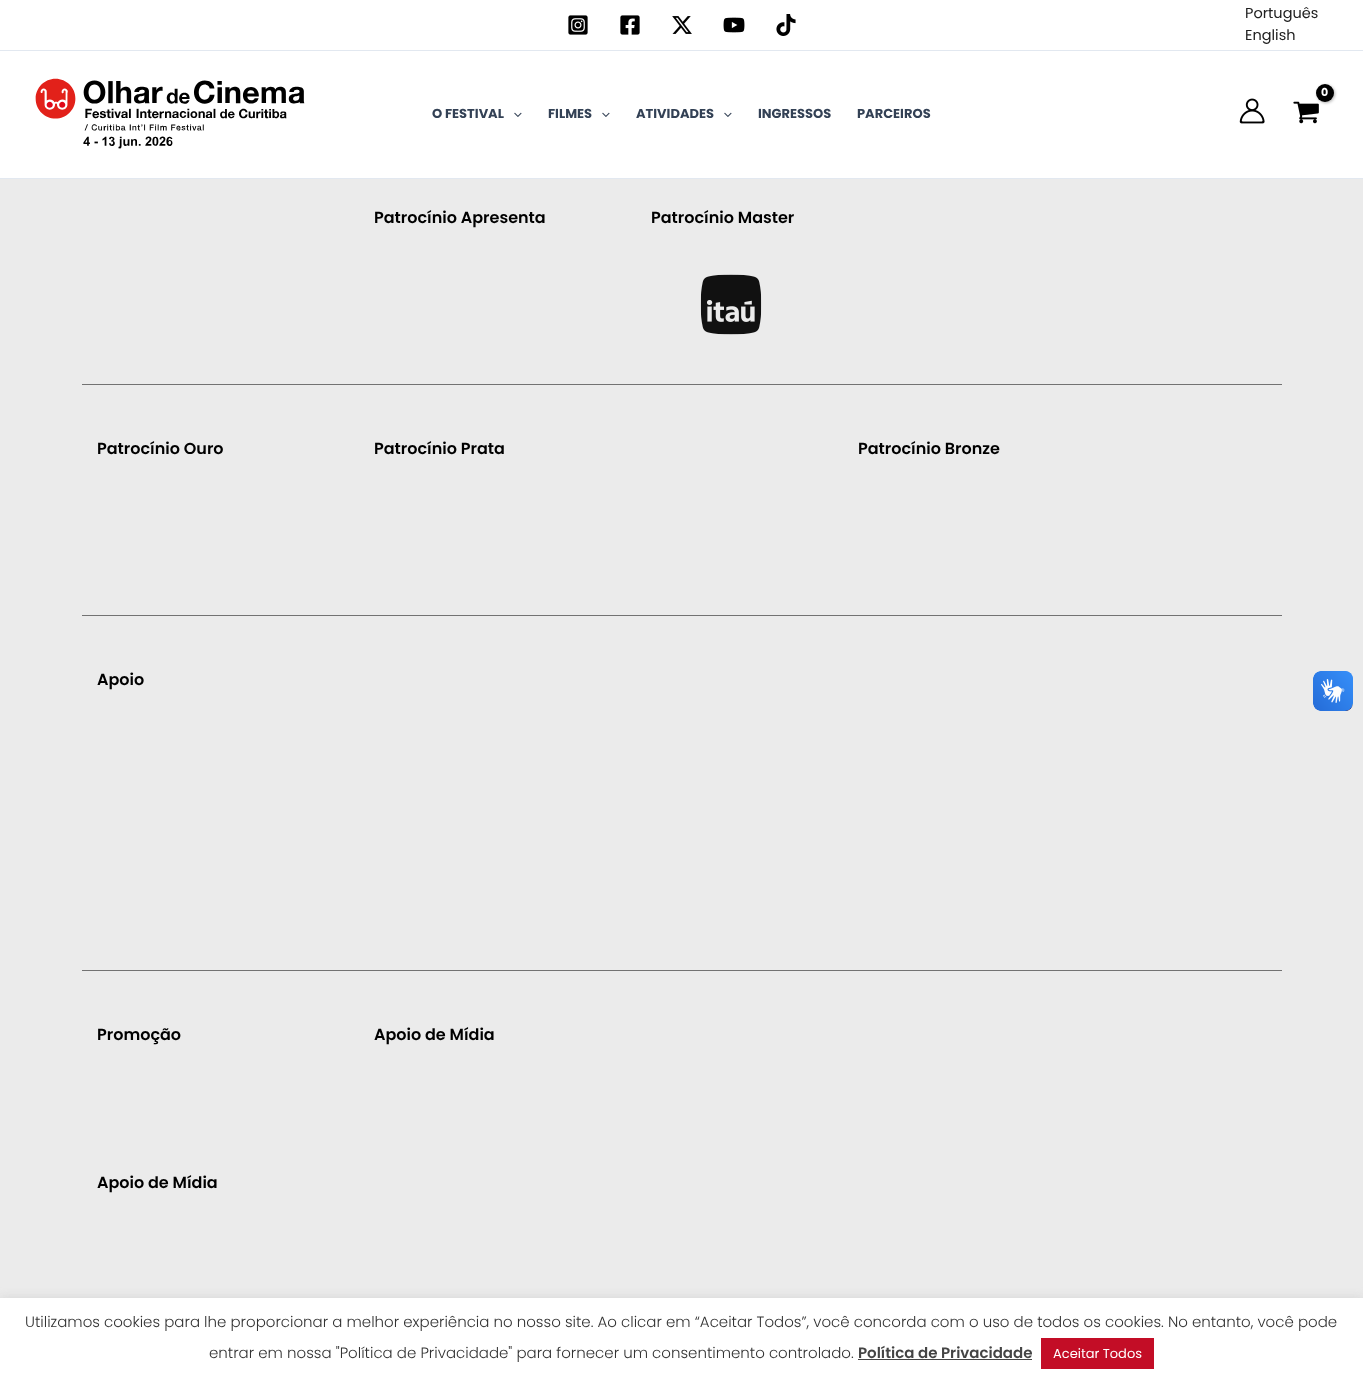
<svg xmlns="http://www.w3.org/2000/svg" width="1363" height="1381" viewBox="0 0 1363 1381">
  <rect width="100%" height="100%" fill="#fff"/>
  <path d="M0 50h1363v1H0z" fill="#e2e8f0"/>
  <image x="568" y="15" width="20" height="20" href="img/1.png"/>
  <image x="620" y="15" width="20" height="20" href="img/2.png"/>
  <image x="672" y="16" width="20" height="18" href="img/3.png"/>
  <image x="723" y="17" width="22" height="16" href="img/4.png"/>
  <image x="776" y="14" width="20" height="22" href="img/5.png"/>
  <path d="M0 178h1363v1H0z" fill="#e2e8f0"/>
  <image x="35" y="78" width="270" height="71" href="img/6.png"/>
  <image x="1293" y="101" width="26" height="23" href="img/7.png"/>
  <rect x="1317" y="85" width="18" height="18" rx="9" fill="#0000004d" filter="blur(1.5px)"/>
  <circle cx="1325" cy="93" r="9" fill="#000"/>
  <image x="1239" y="98" width="26" height="26" href="img/8.png"/>
  <image x="514" y="112" width="8" height="5" href="img/9.png"/>
  <image x="602" y="112" width="8" height="5" href="img/9.png"/>
  <image x="724" y="112" width="8" height="5" href="img/9.png"/>
  <path d="M0 179h1363v1119H0z" fill="#ebebeb"/>
  <path d="M82 384h1200v1H82z" fill="#727272"/>
  <image x="700" y="274" width="62" height="61" href="img/10.png"/>
  <path d="M82 615h1200v1H82z" fill="#727272"/>
  <path d="M82 970h1200v1H82z" fill="#727272"/>
  <image x="1313" y="671" width="40" height="40" href="img/11.png"/>
  <image x="1313" y="671" width="40" height="40" href="img/12.png"/>
  <path d="M0 1297h1363v83H0z" fill="#acabab4d" filter="blur(5px)"/>
  <path d="M0 1298h1363v83H0z" fill="#fff"/>
  <path d="M858 1359h174v1H858z" fill="#444"/>
  <path d="M1041 1338h113v31H1041z" fill="#c30d26"/>
  <g font-family="Poppins" font-size="14.5" fill="#202020">
    <text x="1245" y="18">Português</text>
    <text x="1245" y="40">English</text>
  </g>
  <text x="1321" y="96" font-family="Poppins" font-size="11" font-weight="bold" fill="#fff">0</text>
  <g font-family="Poppins" font-size="13" font-weight="bold" fill="#334155">
    <text x="432" y="118">O FESTIVAL</text>
    <text x="548" y="118">FILMES</text>
    <text x="636" y="118">ATIVIDADES</text>
    <text x="758" y="118">INGRESSOS</text>
    <text x="857" y="118">PARCEIROS</text>
  </g>
  <g font-family="Poppins" font-size="16" font-weight="600" fill="#000">
    <text x="374" y="223">Patrocínio Apresenta</text>
    <text x="651" y="223">Patrocínio Master</text>
    <text x="97" y="454">Patrocínio Ouro</text>
    <text x="374" y="454">Patrocínio Prata</text>
    <text x="858" y="454">Patrocínio Bronze</text>
    <text x="97" y="685">Apoio</text>
    <text x="97" y="1040">Promoção</text>
    <text x="374" y="1040">Apoio de Mídia</text>
    <text x="97" y="1188">Apoio de Mídia</text>
  </g>
  <g font-family="Poppins" font-size="15" font-weight="300" fill="#333">
    <text x="25" y="1327">Utilizamos cookies para lhe proporcionar a melhor experiência no nosso site. Ao clicar em “Aceitar Todos”, você concorda com o uso de todos os cookies. No entanto, você pode</text>
    <text x="209" y="1358">entrar em nossa "Política de Privacidade" para fornecer um consentimento controlado.</text>
  </g>
  <text x="858" y="1358" font-family="Poppins" font-size="15" font-weight="600" fill="#444">Política de Privacidade</text>
  <text x="1053" y="1358" font-family="Poppins" font-size="13" fill="#fff">Aceitar Todos</text>
</svg>
